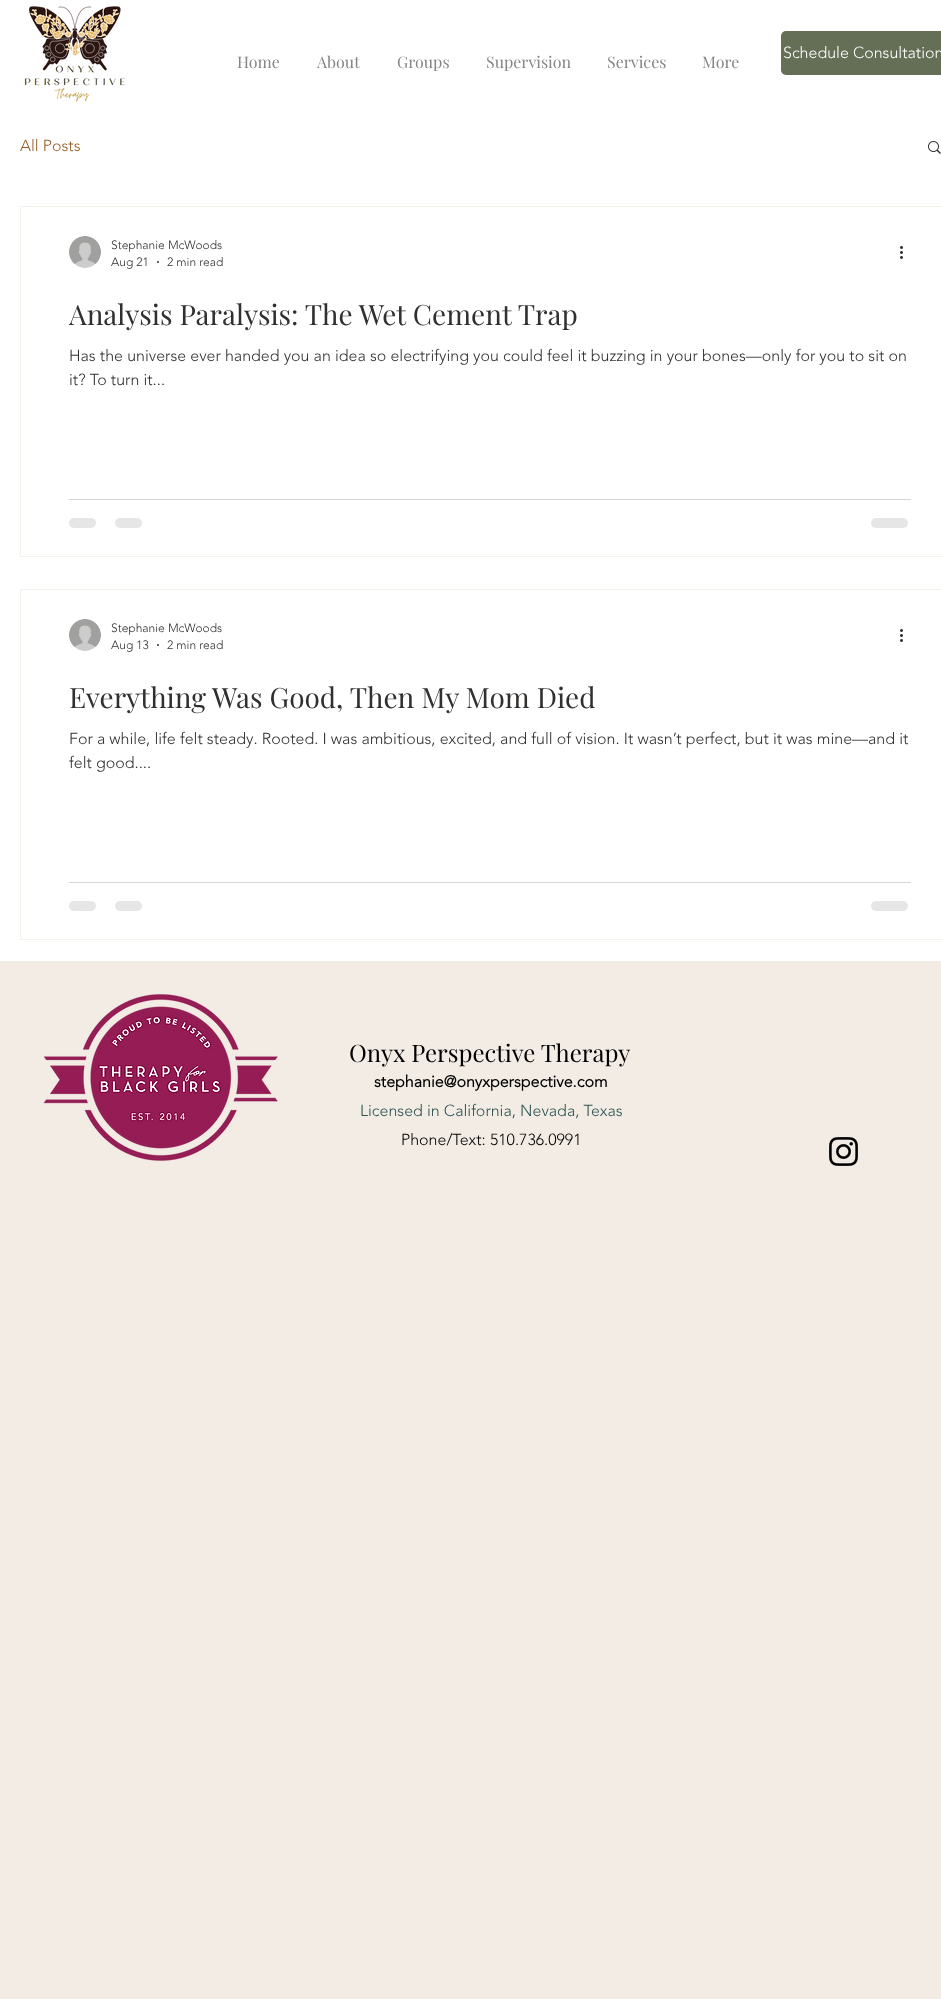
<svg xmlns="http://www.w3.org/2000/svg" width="941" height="1999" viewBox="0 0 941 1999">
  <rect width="100%" height="100%" fill="#f2ece4"/>
  <path d="M0 0h941v961H0z" fill="#fff"/>
  <image x="24" y="6" width="101" height="96" href="img/1.png"/>
  <rect x="781" y="31" width="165" height="44" rx="5" fill="#656f55"/>
  <image x="928" y="141" width="13" height="13" href="img/2.png"/>
  <path d="M20.5 206.5h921v350H20.5z" fill="none" stroke="#f5f1eb"/>
  <image x="69" y="236" width="32" height="32" href="img/3.png"/>
  <circle cx="158" cy="262" r="1" fill="#32302f"/>
  <image x="900" y="246" width="3" height="13" href="img/4.png"/>
  <path d="M69 499h842v1H69z" fill="#d6d6d5"/>
  <rect x="69" y="518" width="27" height="10" rx="5" fill="#e6e6e6"/>
  <rect x="115" y="518" width="27" height="10" rx="5" fill="#e6e6e6"/>
  <rect x="871" y="518" width="37" height="10" rx="5" fill="#e6e6e6"/>
  <path d="M20.5 589.5h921v350H20.5z" fill="none" stroke="#f5f1eb"/>
  <image x="69" y="619" width="32" height="32" href="img/3.png"/>
  <circle cx="158" cy="645" r="1" fill="#32302f"/>
  <image x="900" y="629" width="3" height="13" href="img/4.png"/>
  <path d="M69 882h842v1H69z" fill="#d6d6d5"/>
  <rect x="69" y="901" width="27" height="10" rx="5" fill="#e6e6e6"/>
  <rect x="115" y="901" width="27" height="10" rx="5" fill="#e6e6e6"/>
  <rect x="871" y="901" width="37" height="10" rx="5" fill="#e6e6e6"/>
  <image x="43" y="994" width="235" height="167" href="img/5.png"/>
  <image x="829" y="1137" width="29" height="29" href="img/6.png"/>
  <text x="783" y="58" font-family="'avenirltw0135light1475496'" font-size="16" font-weight="300" fill="#fff">Schedule Consultation</text>
  <g font-family="Playfair Display" font-size="16" fill="#858585">
    <text x="237" y="68">Home</text>
    <text x="317" y="68">About</text>
    <text x="397" y="68">Groups</text>
    <text x="486" y="68">Supervision</text>
    <text x="607" y="68">Services</text>
    <text x="702" y="68">More</text>
  </g>
  <text x="20" y="151" font-family="'avenirltw0135light1475496'" font-size="16" font-weight="300" fill="#955f27">All Posts</text>
  <g font-family="'avenirltw0135light1475496'" font-size="12" font-weight="300" fill="#32302f">
    <text x="111" y="249">Stephanie McWoods</text>
    <text x="111" y="266">Aug 21</text>
    <text x="167" y="266">2 min read</text>
  </g>
  <text x="69" y="325" font-family="Playfair Display" font-size="28" fill="#32302f">Analysis Paralysis: The Wet Cement Trap</text>
  <g font-family="'avenirltw0135light1475496'" font-size="16" font-weight="300" fill="#32302f">
    <text x="69" y="361">Has the universe ever handed you an idea so electrifying you could feel it buzzing in your bones—only for you to sit on</text>
    <text x="69" y="385">it? To turn it...</text>
  </g>
  <g font-family="'avenirltw0135light1475496'" font-size="12" font-weight="300" fill="#32302f">
    <text x="111" y="632">Stephanie McWoods</text>
    <text x="111" y="649">Aug 13</text>
    <text x="167" y="649">2 min read</text>
  </g>
  <text x="69" y="708" font-family="Playfair Display" font-size="28" fill="#32302f">Everything Was Good, Then My Mom Died</text>
  <g font-family="'avenirltw0135light1475496'" font-size="16" font-weight="300" fill="#32302f">
    <text x="69" y="744">For a while, life felt steady. Rooted. I was ambitious, excited, and full of vision. It wasn’t perfect, but it was mine—and it</text>
    <text x="69" y="768">felt good....</text>
  </g>
  <text x="349" y="1062" font-family="Playfair Display" font-size="24" fill="#000">Onyx Perspective Therapy</text>
  <text x="374" y="1087" font-family="'avenirltw0135light1475496'" font-size="16" font-weight="bold" fill="#000">stephanie@onyxperspective.com</text>
  <text x="360" y="1116" font-family="'avenirltw0135light1475496'" font-size="16" font-weight="300" fill="#2e5252">Licensed in California, Nevada, Texas</text>
  <text x="401" y="1145" font-family="'avenirltw0135light1475496'" font-size="16" font-weight="300" fill="#000">Phone/Text: 510.736.0991</text>
</svg>
